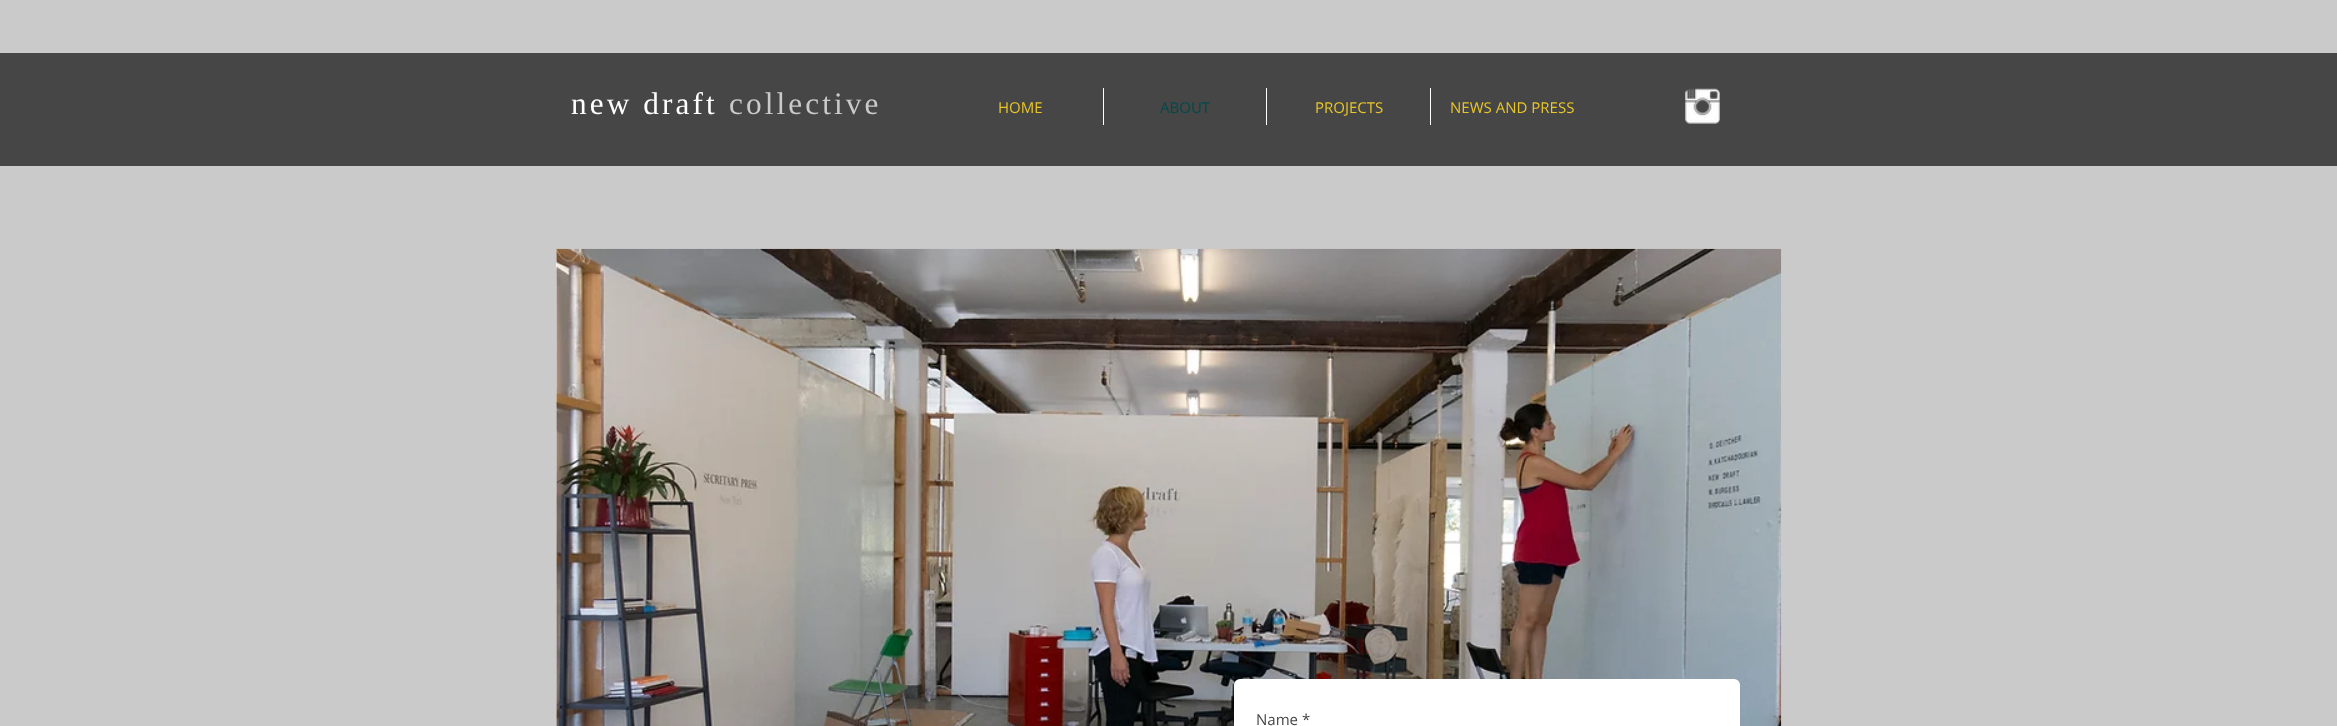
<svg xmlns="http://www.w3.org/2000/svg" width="2337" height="726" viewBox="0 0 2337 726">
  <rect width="100%" height="100%" fill="#cacaca"/>
  <path d="M0 53h2337v113H0z" fill="#464646"/>
  <path d="M1103 88h1v37H1103z" fill="#fff"/>
  <path d="M1266 88h1v37H1266z" fill="#fff"/>
  <path d="M1430 88h1v37H1430z" fill="#fff"/>
  <image x="1685" y="88" width="35" height="36" href="img/1.png"/>
  <rect x="556.5" y="249.5" width="1224" height="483" rx="5.5" fill="none" stroke="#fff"/>
  <image x="556" y="248" width="1226" height="478" href="img/2.png"/>
  <rect x="1234" y="679" width="506" height="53" rx="6" fill="#fff"/>
  <text x="571" y="114" font-family="Liberation Serif" font-size="31.25" letter-spacing="3.1" fill="#fff">new draft</text>
  <text x="729" y="114" font-family="Liberation Serif" font-size="31.25" letter-spacing="3.1" fill="#cacaca">collective</text>
  <text x="998" y="113" font-family="Open Sans" font-size="15" fill="#e8c529">HOME</text>
  <text x="1160" y="113" font-family="Open Sans" font-size="15" fill="#00494c">ABOUT</text>
  <g font-family="Open Sans" font-size="15" fill="#e8c529">
    <text x="1315" y="113">PROJECTS</text>
    <text x="1450" y="113">NEWS AND PRESS</text>
  </g>
  <text x="1256" y="725" font-family="Open Sans" font-size="15" fill="#464646">Name *</text>
</svg>
